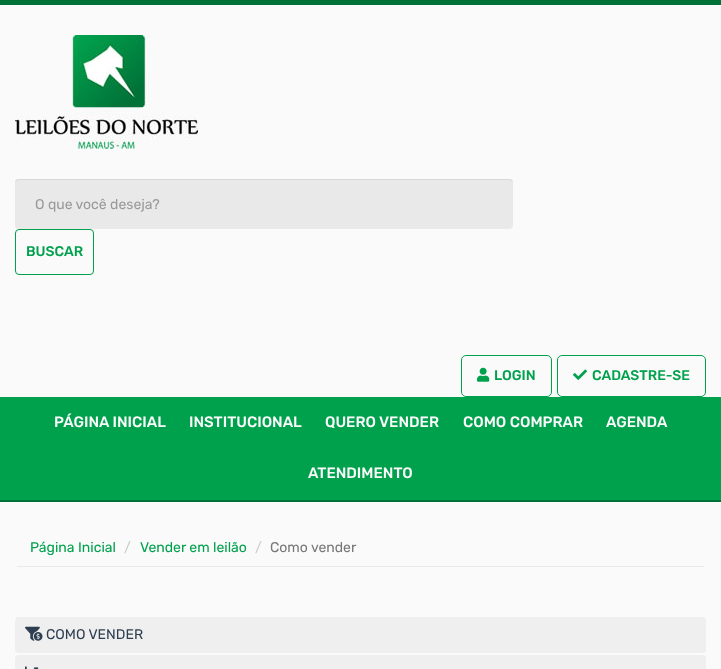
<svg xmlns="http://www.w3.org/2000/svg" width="721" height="669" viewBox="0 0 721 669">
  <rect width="100%" height="100%" fill="#fafafa"/>
  <path d="M0 0h721v5H0z" fill="#007237"/>
  <image x="15" y="35" width="183" height="114" href="img/1.png"/>
  <rect x="15" y="179" width="498" height="50" rx="4" fill="#e9e9e9"/>
  <path d="M19 180H509C511 180 513 182 513 184C513 181 512 179 509 179H19C16 179 15 181 15 184C15 182 17 180 19 180Z" fill="#00000012"/>
  <rect x="15.5" y="229.5" width="78" height="45" rx="3.5" fill="none" stroke="#00a14d"/>
  <rect x="461.5" y="355.5" width="90" height="41" rx="4.5" fill="none" stroke="#00a14d"/>
  <image x="477" y="367" width="13" height="15" href="img/2.png"/>
  <rect x="557.5" y="355.5" width="148" height="41" rx="4.5" fill="none" stroke="#00a14d"/>
  <image x="573" y="369" width="14" height="11" href="img/3.png"/>
  <path d="M0 500h721v2H0z" fill="#007237"/>
  <path d="M0 397h721v103H0z" fill="#00a14d"/>
  <path d="M17 566h687v1H17z" fill="#e9e9e9"/>
  <rect x="15" y="617" width="691" height="36" rx="4" fill="#efefef"/>
  <image x="25" y="626" width="18" height="15" href="img/4.png"/>
  <rect x="15" y="655" width="691" height="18" rx="4" fill="#efefef"/>
  <image x="25" y="666" width="14" height="3" href="img/5.png"/>
  <text x="35" y="209" font-family="Rubik" font-size="14" fill="#999">O que você deseja?</text>
  <g font-family="Rubik" font-size="14" font-weight="500" fill="#00a14d">
    <text x="26" y="256">BUSCAR</text>
    <text x="494" y="380">LOGIN</text>
    <text x="592" y="380">CADASTRE-SE</text>
  </g>
  <g font-family="Rubik" font-size="15" font-weight="500" fill="#fafafa">
    <text x="54" y="427">PÁGINA INICIAL</text>
    <text x="189" y="427">INSTITUCIONAL</text>
    <text x="325" y="427">QUERO VENDER</text>
    <text x="463" y="427">COMO COMPRAR</text>
    <text x="606" y="427">AGENDA</text>
    <text x="308" y="478">ATENDIMENTO</text>
  </g>
  <text x="30" y="552" font-family="Rubik" font-size="14" fill="#00a14d">Página Inicial</text>
  <text x="124" y="552" font-family="Rubik" font-size="14" fill="#ccc">/</text>
  <text x="140" y="552" font-family="Rubik" font-size="14" fill="#00a14d">Vender em leilão</text>
  <text x="255" y="552" font-family="Rubik" font-size="14" fill="#ccc">/</text>
  <text x="270" y="552" font-family="Rubik" font-size="14" fill="#777">Como vender</text>
  <text x="46" y="639" font-family="Rubik" font-size="14" fill="#2c3e50">COMO VENDER</text>
</svg>
